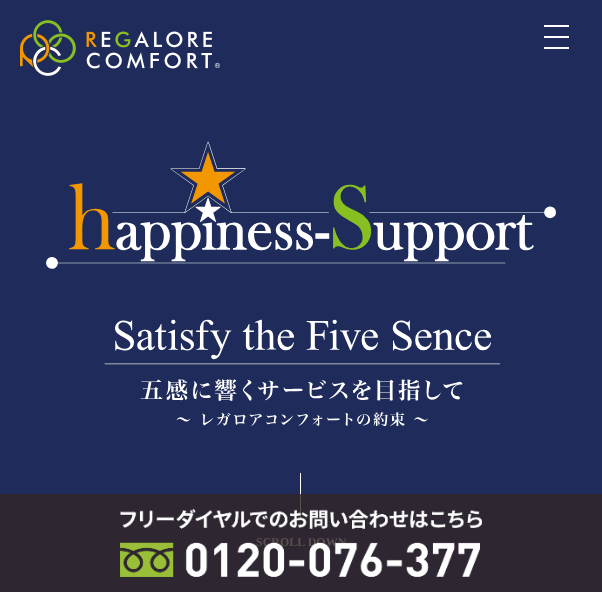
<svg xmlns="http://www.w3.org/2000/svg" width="602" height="592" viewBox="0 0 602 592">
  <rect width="100%" height="100%" fill="#1f2c5b"/>
  <image x="20" y="20" width="200" height="56" href="img/1.png"/>
  <path d="M544 25h25v2H544z" fill="#fff"/>
  <path d="M544 36h25v2H544z" fill="#fff"/>
  <path d="M544 47h25v2H544z" fill="#fff"/>
  <path d="M0 494h602v98H0z" fill="#2e2630"/>
  <image x="46" y="141" width="510" height="285" href="img/3.png"/>
  <path d="M300 473h1v21H300z" fill="#fff"/>
  <path d="M300 494h1v24H300z" fill="#5b5151"/>
  <text x="256" y="546" font-family="Liberation Serif" font-size="12" font-weight="bold" fill="#5b5151">SCROLL DOWN</text>
  <image x="120" y="508" width="362" height="69" href="img/2.png"/>
</svg>
